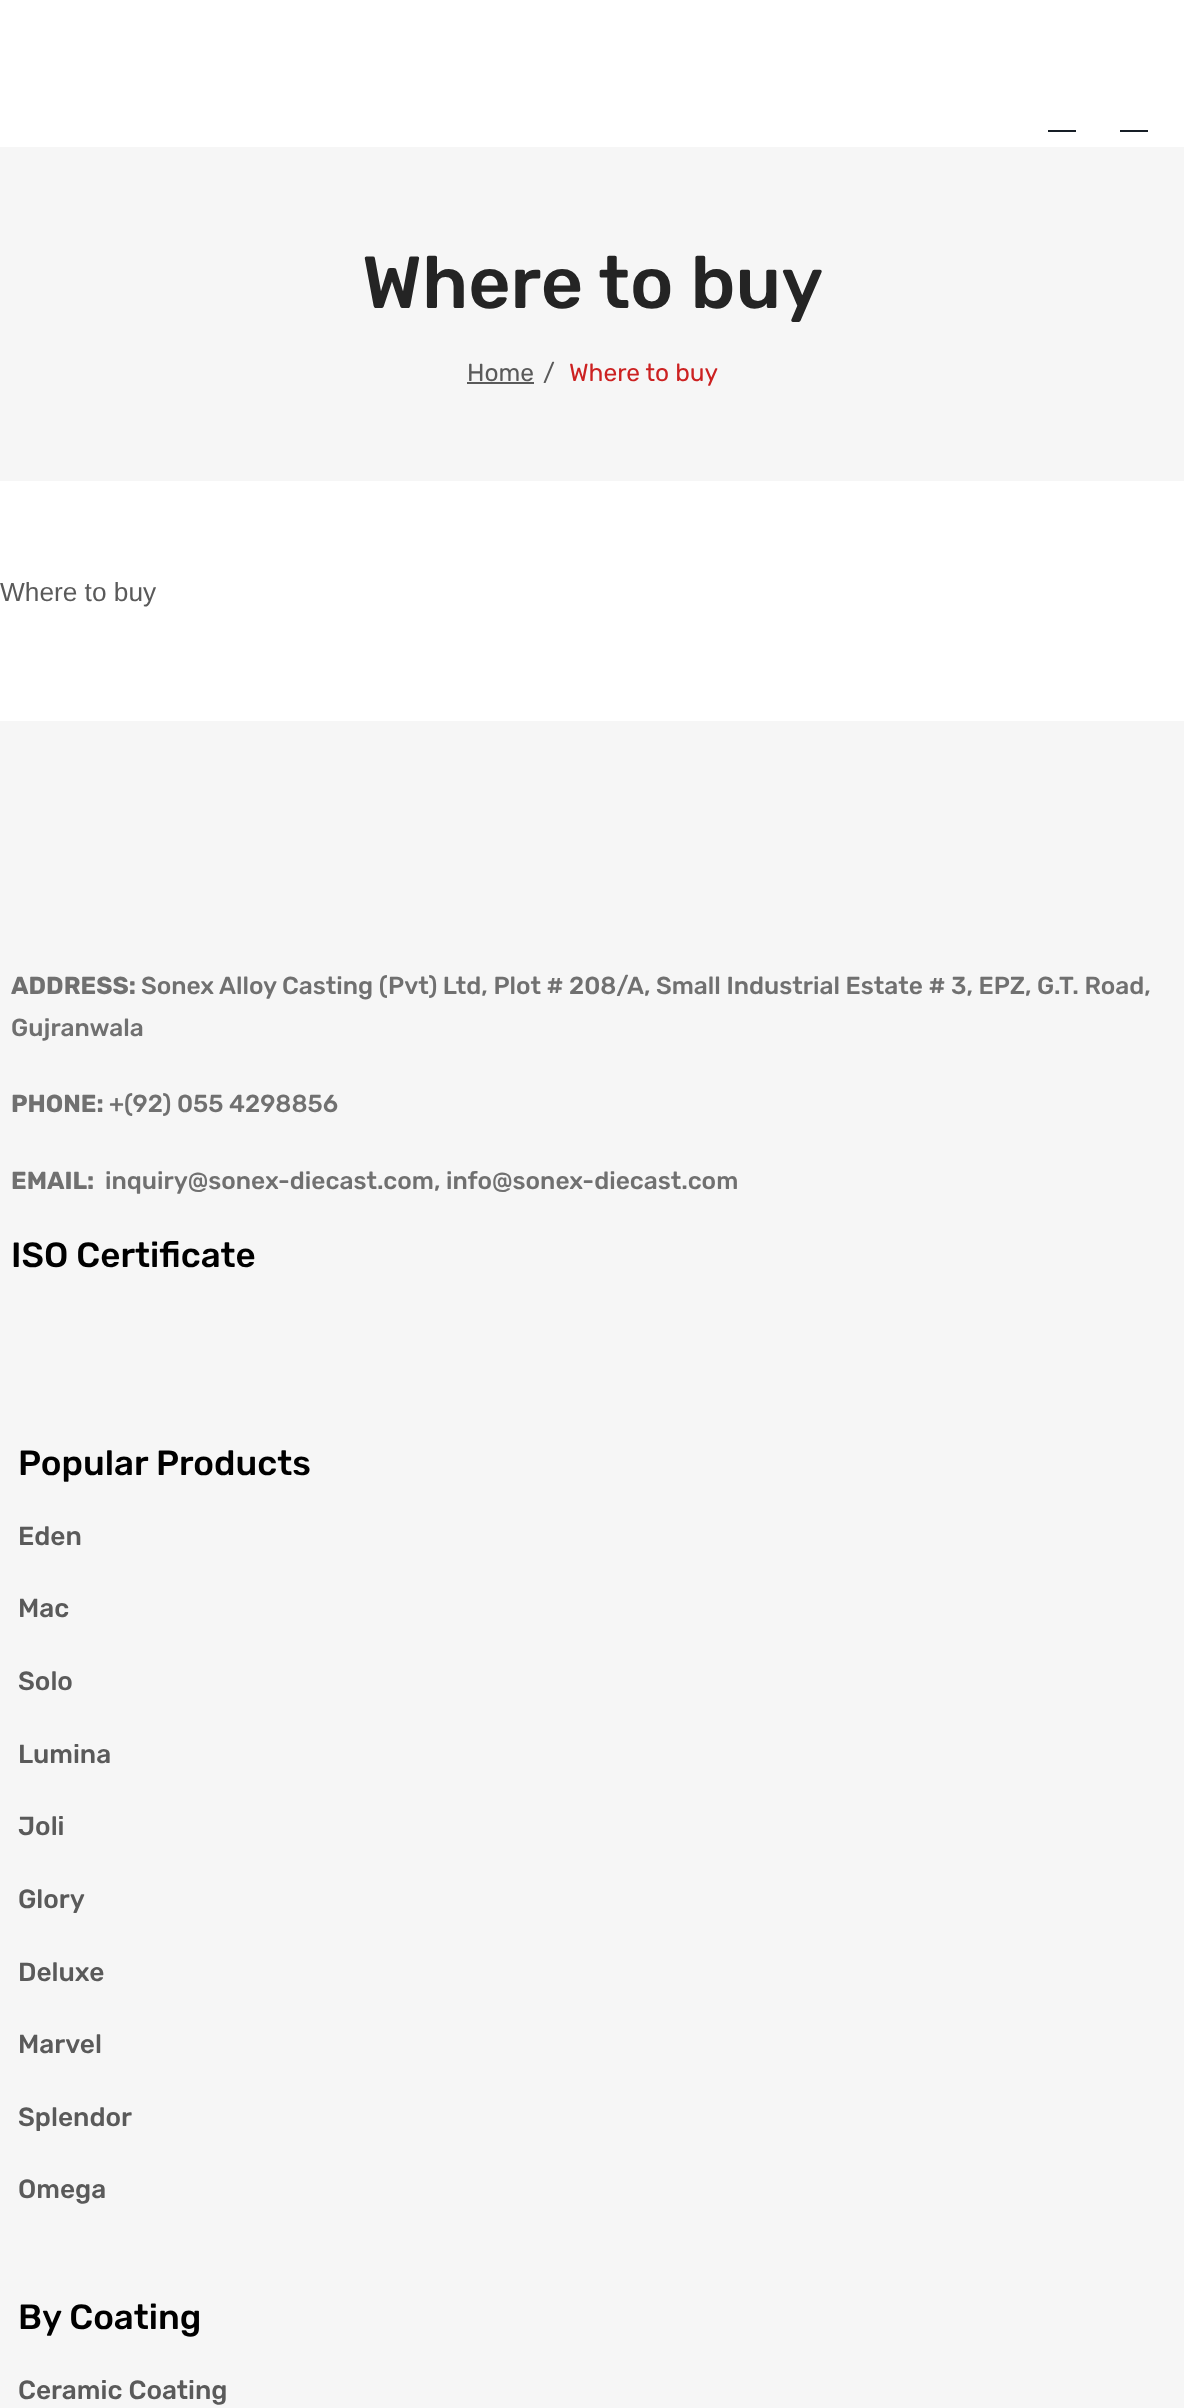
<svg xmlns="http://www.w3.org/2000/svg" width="1184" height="2408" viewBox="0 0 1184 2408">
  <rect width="100%" height="100%" fill="#fff"/>
  <path d="M1048 130h28v2H1048z" fill="#171e26"/>
  <path d="M1120 130h28v2H1120z" fill="#171e26"/>
  <path d="M0 147h1184v334H0z" fill="#f6f6f6"/>
  <path d="M467 382h67v2H467z" fill="#5a5a5a"/>
  <path d="M0 721h1184v1687H0z" fill="#f6f6f6"/>
  <text x="362" y="308" font-family="Rubik" font-size="73.5" font-weight="500" fill="#242424">Where to buy</text>
  <g font-family="Rubik" font-size="24.5" fill="#5a5a5a">
    <text x="467" y="381">Home</text>
    <text x="543" y="381">/</text>
  </g>
  <text x="569" y="381" font-family="Rubik" font-size="24.5" fill="#cc2121">Where to buy</text>
  <text x="0" y="601" font-family="Liberation Sans" font-size="26.25" fill="#5a5a5a">Where to buy</text>
  <text x="11" y="994" font-family="Rubik" font-size="24.5" font-weight="bold" fill="#707070">ADDRESS:</text>
  <g font-family="Rubik" font-size="24.5" font-weight="500" fill="#707070">
    <text x="141" y="994">Sonex Alloy Casting (Pvt) Ltd, Plot # 208/A, Small Industrial Estate # 3, EPZ, G.T. Road,</text>
    <text x="11" y="1036">Gujranwala</text>
  </g>
  <text x="11" y="1112" font-family="Rubik" font-size="24.5" font-weight="bold" fill="#707070">PHONE:</text>
  <text x="109" y="1112" font-family="Rubik" font-size="24.5" font-weight="500" fill="#707070">+(92) 055 4298856</text>
  <text x="11" y="1189" font-family="Rubik" font-size="24.5" font-weight="bold" fill="#707070">EMAIL:</text>
  <text x="105" y="1189" font-family="Rubik" font-size="24.5" font-weight="500" fill="#707070">inquiry@sonex-diecast.com, info@sonex-diecast.com</text>
  <g font-family="Rubik" font-size="35" font-weight="500" fill="#000">
    <text x="11" y="1267">ISO Certificate</text>
    <text x="18" y="1475">Popular Products</text>
  </g>
  <g font-family="Rubik" font-size="26.25" font-weight="500" fill="#5a5a5a">
    <text x="18" y="1545">Eden</text>
    <text x="18" y="1617">Mac</text>
    <text x="18" y="1690">Solo</text>
    <text x="18" y="1763">Lumina</text>
    <text x="18" y="1835">Joli</text>
    <text x="18" y="1908">Glory</text>
    <text x="18" y="1981">Deluxe</text>
    <text x="18" y="2053">Marvel</text>
    <text x="18" y="2126">Splendor</text>
    <text x="18" y="2198">Omega</text>
  </g>
  <text x="18" y="2329" font-family="Rubik" font-size="35" font-weight="500" fill="#000">By Coating</text>
  <text x="18" y="2399" font-family="Rubik" font-size="26.25" font-weight="500" fill="#5a5a5a">Ceramic Coating</text>
</svg>
